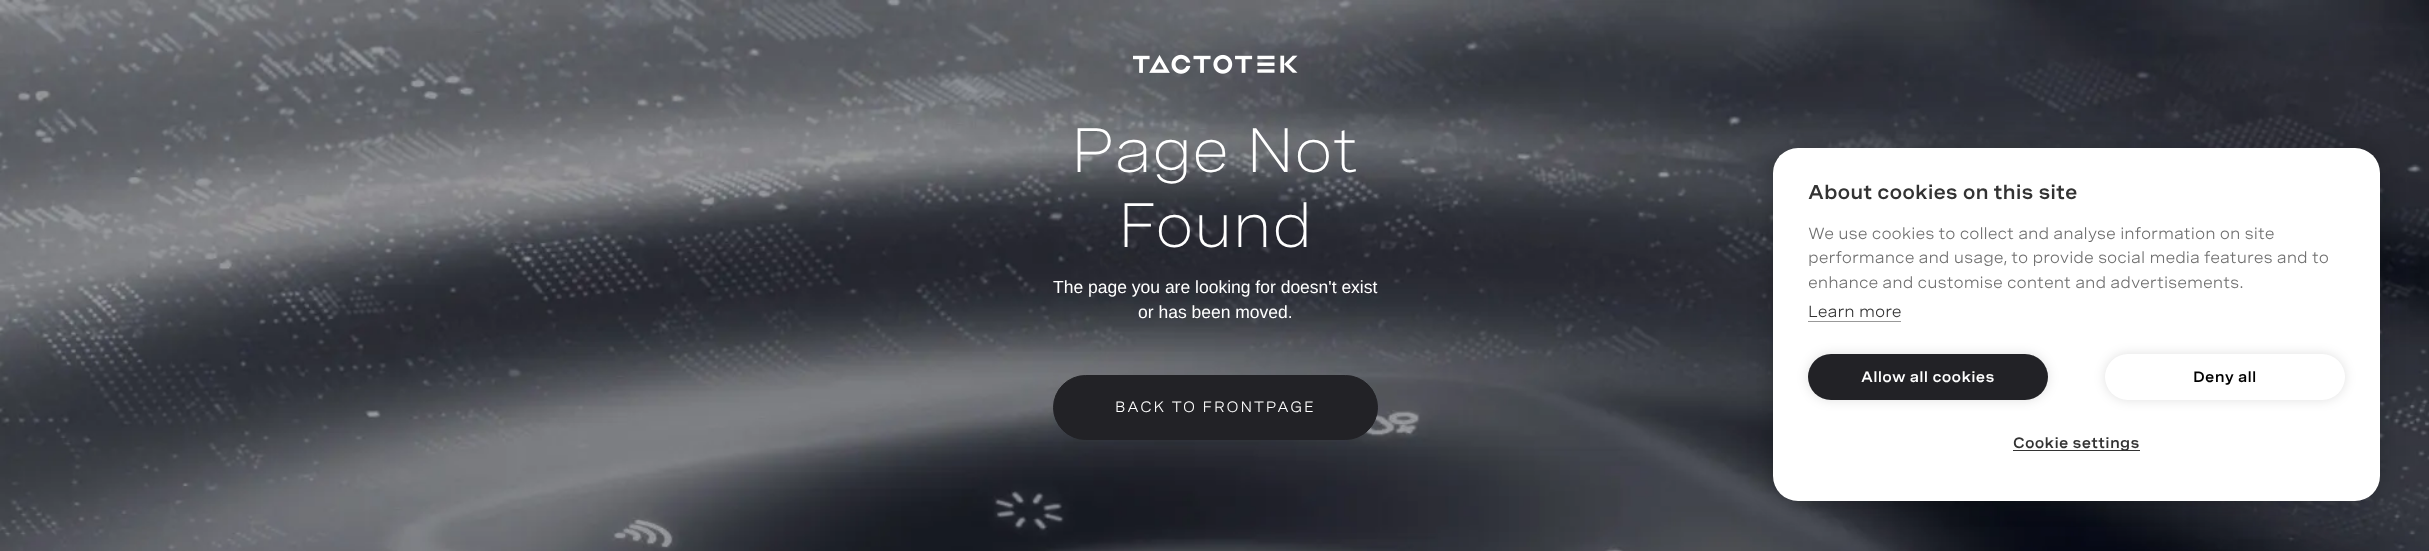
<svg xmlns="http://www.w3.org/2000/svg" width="2429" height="551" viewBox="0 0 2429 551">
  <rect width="100%" height="100%" fill="#fff"/>
  <image x="0" y="0" width="2429" height="551" href="img/1.png"/>
  <image x="1133" y="54" width="165" height="20" href="img/2.png"/>
  <rect x="1053.5" y="375.5" width="324" height="64" rx="32" fill="#222226" stroke="#222226"/>
  <rect x="1773" y="148" width="607" height="353" rx="25" fill="#00000033" filter="blur(12.5px)"/>
  <rect x="1773" y="148" width="607" height="353" rx="25" fill="#fff"/>
  <path d="M1808 321h93v1H1808z" fill="#999"/>
  <rect x="1808" y="354" width="240" height="46" rx="23" fill="#0000001f" filter="blur(6px)"/>
  <rect x="1808" y="354" width="240" height="46" rx="23" fill="#222226"/>
  <rect x="2105" y="354" width="240" height="46" rx="23" fill="#0000001f" filter="blur(6px)"/>
  <rect x="2105" y="354" width="240" height="46" rx="23" fill="#fff"/>
  <path d="M2013 450h127v1H2013z" fill="#333"/>
  <g font-family="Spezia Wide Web" font-size="62.5" fill="#fff">
    <text x="1071" y="172">Page Not</text>
    <text x="1118" y="247">Found</text>
  </g>
  <g font-family="Liberation Sans" font-size="17.5" fill="#fff">
    <text x="1053" y="293">The page you are looking for doesn't exist</text>
    <text x="1138" y="318">or has been moved.</text>
  </g>
  <text x="1115" y="412" font-family="'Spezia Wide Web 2'" font-size="15" letter-spacing="1.9" fill="#fff">BACK TO FRONTPAGE</text>
  <text x="1808" y="199" font-family="Spezia Wide Web" font-size="20" font-weight="600" fill="#333">About cookies on this site</text>
  <g font-family="'Spezia Wide Web 2'" font-size="16.25" fill="#707070">
    <text x="1808" y="239">We use cookies to collect and analyse information on site</text>
    <text x="1808" y="263">performance and usage, to provide social media features and to</text>
    <text x="1808" y="288">enhance and customise content and advertisements.</text>
  </g>
  <text x="1808" y="317" font-family="'Spezia Wide Web 2'" font-size="16.25" fill="#333">Learn more</text>
  <text x="1861" y="382" font-family="Spezia Wide Web" font-size="15" font-weight="600" letter-spacing="0.25" fill="#fff">Allow all cookies</text>
  <text x="2193" y="382" font-family="Spezia Wide Web" font-size="15" font-weight="600" letter-spacing="0.25" fill="#000">Deny all</text>
  <text x="2013" y="448" font-family="Spezia Wide Web" font-size="15" font-weight="600" letter-spacing="0.25" fill="#333">Cookie settings</text>
</svg>
